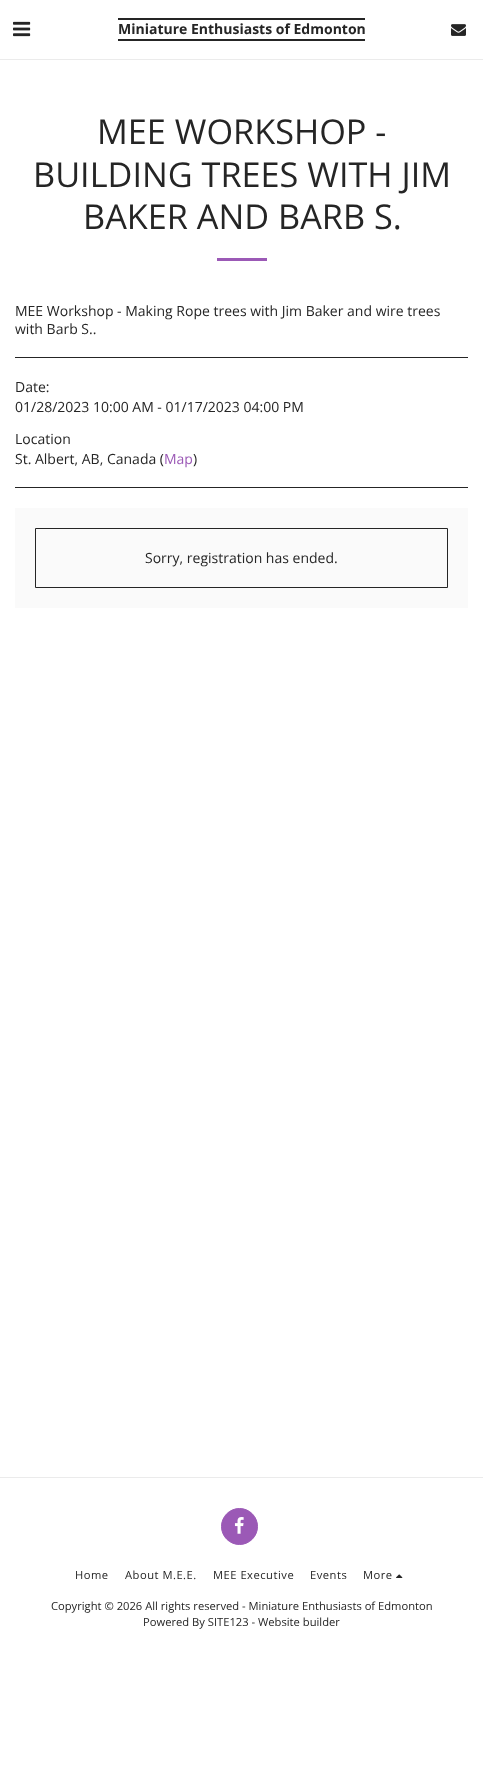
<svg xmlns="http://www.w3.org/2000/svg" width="483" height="1771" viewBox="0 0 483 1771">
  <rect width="100%" height="100%" fill="#fff"/>
  <path d="M0 59h483v1H0z" fill="#ebebeb"/>
  <image x="13" y="21" width="18" height="16" href="img/1.png"/>
  <path d="M118 18h247v2H118z" fill="#252525"/>
  <path d="M118 39h247v2H118z" fill="#252525"/>
  <image x="451" y="24" width="15" height="12" href="img/2.png"/>
  <path d="M217 258h50v3H217z" fill="#9b59b6"/>
  <path d="M15 357h453v1H15z" fill="#252525"/>
  <path d="M15 487h453v1H15z" fill="#252525"/>
  <path d="M15 508h453v100H15z" fill="#fafafa"/>
  <path d="M35.5 528.5h412v59H35.5z" fill="none" stroke="#252525"/>
  <path d="M0 1477h483v1H0z" fill="#ebebeb"/>
  <circle cx="239.5" cy="1526.5" r="18" fill="#9b59b6" stroke="#9b59b6"/>
  <image x="234" y="1517" width="10" height="17" href="img/3.png"/>
  <image x="396" y="1574" width="7" height="4" href="img/4.png"/>
  <text x="118" y="34" font-family="Open Sans" font-size="14" font-weight="bold" fill="#252525">Miniature Enthusiasts of Edmonton</text>
  <g font-family="Open Sans" font-size="34.25" fill="#252525">
    <text x="97" y="144">MEE WORKSHOP -</text>
    <text x="33" y="187">BUILDING TREES WITH JIM</text>
    <text x="83" y="229">BAKER AND BARB S.</text>
  </g>
  <g font-family="Open Sans" font-size="14" fill="#252525">
    <text x="15" y="316">MEE Workshop - Making Rope trees with Jim Baker and wire trees</text>
    <text x="15" y="334">with Barb S..</text>
    <text x="15" y="392">Date:</text>
    <text x="15" y="412">01/28/2023 10:00 AM - 01/17/2023 04:00 PM</text>
    <text x="15" y="444">Location</text>
    <text x="15" y="464">St. Albert, AB, Canada (</text>
  </g>
  <text x="164" y="464" font-family="Open Sans" font-size="14" fill="#9b59b6">Map</text>
  <g font-family="Open Sans" font-size="14" fill="#252525">
    <text x="193" y="464">)</text>
    <text x="145" y="563">Sorry, registration has ended.</text>
  </g>
  <g font-family="Open Sans" font-size="11.2" letter-spacing="0.5" fill="#252525">
    <text x="75" y="1579">Home</text>
    <text x="125" y="1579">About M.E.E.</text>
    <text x="213" y="1579">MEE Executive</text>
    <text x="310" y="1579">Events</text>
    <text x="363" y="1579">More</text>
  </g>
  <g font-family="Open Sans" font-size="11.2" fill="#252525">
    <text x="51" y="1610">Copyright © 2026 All rights reserved - Miniature Enthusiasts of Edmonton</text>
    <text x="143" y="1626">Powered By SITE123 - Website builder</text>
  </g>
</svg>
